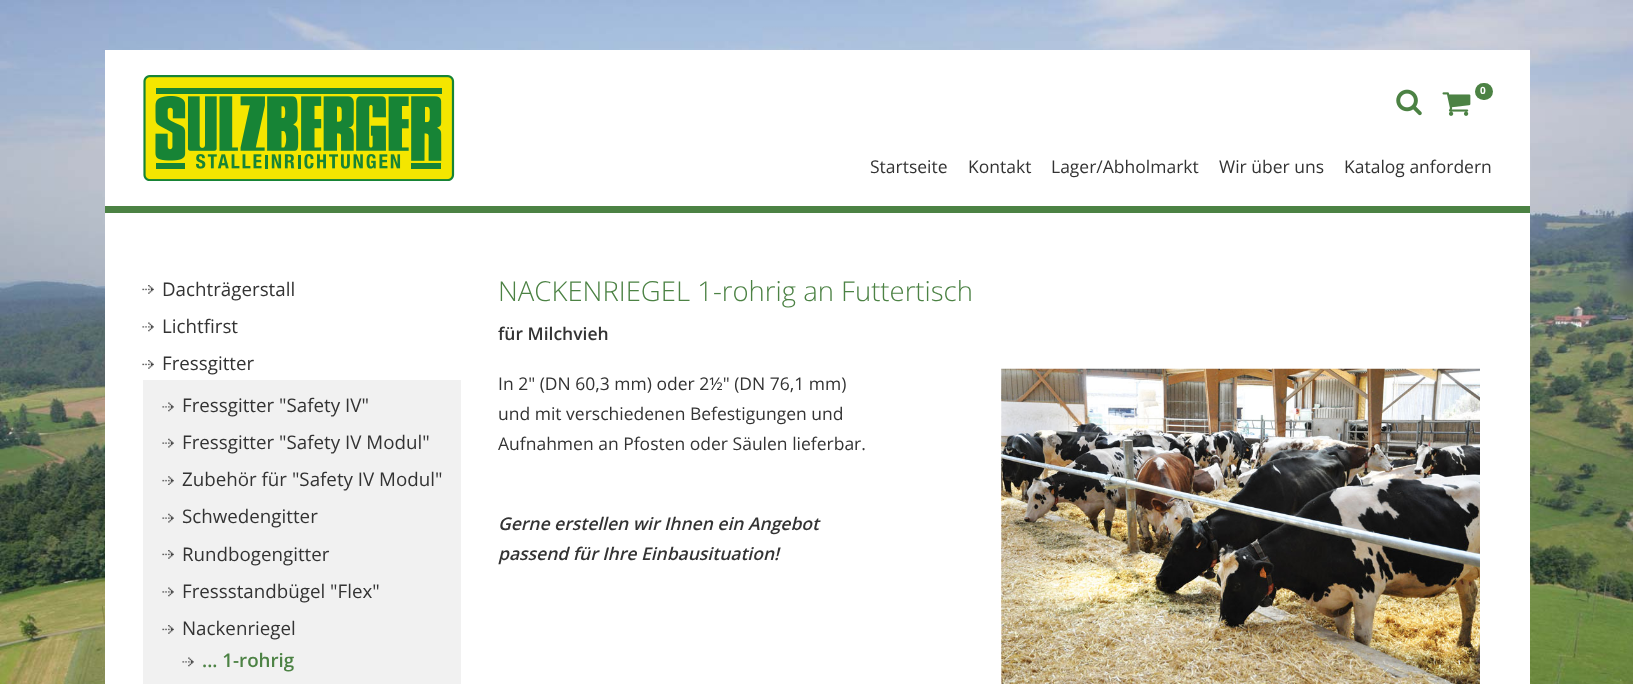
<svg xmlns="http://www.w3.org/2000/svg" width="1633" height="684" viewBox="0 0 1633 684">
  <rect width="100%" height="100%" fill="#fff"/>
  <image x="0" y="0" width="1633" height="684" href="img/1.png"/>
  <path d="M105 50h1425v634H105z" fill="#fff"/>
  <image x="143" y="75" width="312" height="106" href="img/2.png"/>
  <image x="1396" y="89" width="26" height="27" href="img/3.png"/>
  <rect x="1475" y="83" width="18" height="17" rx="8.5" fill="#4c8244"/>
  <image x="1442" y="92" width="29" height="24" href="img/4.png"/>
  <path d="M105 206h1425v7H105z" fill="#4c8244"/>
  <image x="142" y="285" width="12" height="9" href="img/5.png"/>
  <image x="142" y="322" width="12" height="10" href="img/6.png"/>
  <image x="142" y="360" width="12" height="9" href="img/5.png"/>
  <path d="M143 380h318v304H143z" fill="#f1f1f1"/>
  <image x="162" y="402" width="12" height="10" href="img/7.png"/>
  <image x="162" y="438" width="12" height="10" href="img/8.png"/>
  <image x="162" y="476" width="12" height="9" href="img/9.png"/>
  <image x="162" y="513" width="12" height="10" href="img/8.png"/>
  <image x="162" y="550" width="12" height="9" href="img/10.png"/>
  <image x="162" y="587" width="12" height="10" href="img/11.png"/>
  <image x="162" y="625" width="12" height="9" href="img/10.png"/>
  <image x="182" y="657" width="12" height="10" href="img/7.png"/>
  <image x="1001" y="368" width="479" height="316" href="img/12.png"/>
  <text x="1480" y="94" font-family="Open Sans" font-size="10" font-weight="bold" fill="#fff">0</text>
  <g font-family="Open Sans" font-size="17.5" fill="#333">
    <text x="870" y="173">Startseite</text>
    <text x="968" y="173">Kontakt</text>
    <text x="1051" y="173">Lager/Abholmarkt</text>
    <text x="1219" y="173">Wir über uns</text>
    <text x="1344" y="173">Katalog anfordern</text>
  </g>
  <g font-family="Open Sans" font-size="18.75" fill="#333">
    <text x="162" y="296">Dachträgerstall</text>
    <text x="162" y="333">Lichtfirst</text>
    <text x="162" y="370">Fressgitter</text>
    <text x="182" y="412">Fressgitter "Safety IV"</text>
    <text x="182" y="449">Fressgitter "Safety IV Modul"</text>
    <text x="182" y="486">Zubehör für "Safety IV Modul"</text>
    <text x="182" y="523">Schwedengitter</text>
    <text x="182" y="561">Rundbogengitter</text>
    <text x="182" y="598">Fressstandbügel "Flex"</text>
    <text x="182" y="635">Nackenriegel</text>
  </g>
  <text x="202" y="667" font-family="Open Sans" font-size="18.75" font-weight="600" fill="#4c8244">... 1-rohrig</text>
  <text x="498" y="301" font-family="Open Sans" font-size="27.5" font-weight="300" fill="#4c8244">NACKENRIEGEL 1-rohrig an Futtertisch</text>
  <text x="498" y="340" font-family="Open Sans" font-size="17.5" font-weight="600" fill="#333">für Milchvieh</text>
  <g font-family="Open Sans" font-size="17.5" fill="#333">
    <text x="498" y="390">In 2" (DN 60,3 mm) oder 2½" (DN 76,1 mm)</text>
    <text x="498" y="420">und mit verschiedenen Befestigungen und</text>
    <text x="498" y="450">Aufnahmen an Pfosten oder Säulen lieferbar.</text>
  </g>
  <g font-family="Open Sans" font-size="17.5" font-weight="600" font-style="italic" fill="#333">
    <text x="498" y="530">Gerne erstellen wir Ihnen ein Angebot</text>
    <text x="498" y="560">passend für Ihre Einbausituation!</text>
  </g>
</svg>
